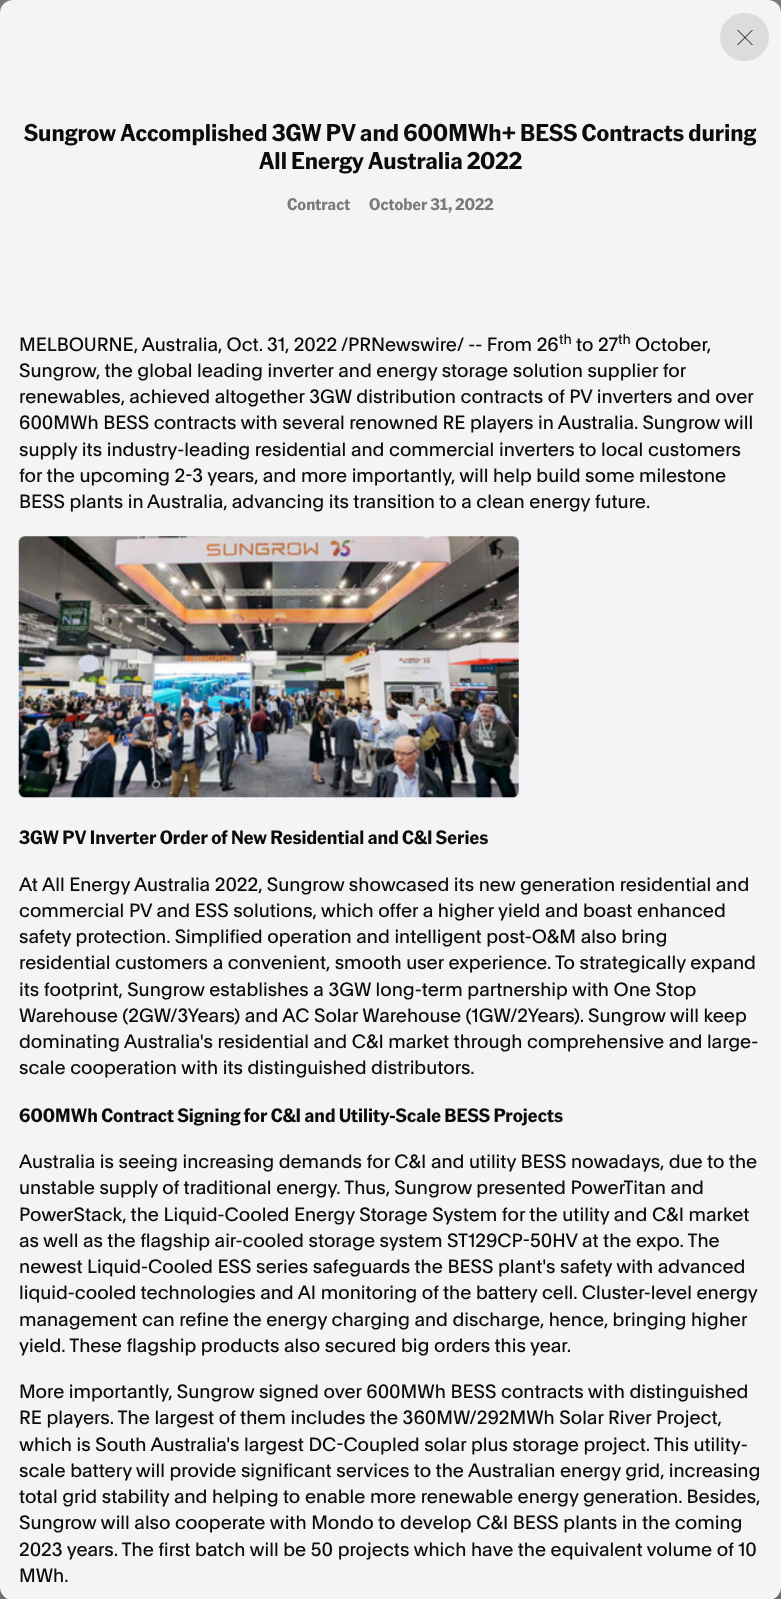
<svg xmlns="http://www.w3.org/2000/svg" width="781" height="1599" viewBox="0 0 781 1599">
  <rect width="100%" height="100%" fill="#7a7a7c"/>
  <path d="M0 1587h781v12H0z" fill="#6e6e6f"/>
  <rect width="781" height="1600" rx="13" fill="#f4f4f7"/>
  <rect x="720" y="13" width="49" height="48" rx="24" fill="#dcdcde"/>
  <path d="M752.5 30L737.5 45M752.5 45L737.5 30" fill="none" stroke="#0c0c0c" stroke-linejoin="round"/>
  <image x="18" y="536" width="501" height="262" href="img/1.png"/>
  <g font-family="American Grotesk" font-size="23.45" font-weight="bold" fill="#0c0c0c">
    <text x="24" y="141">Sungrow Accomplished 3GW PV and 600MWh+ BESS Contracts during</text>
    <text x="259" y="169">All Energy Australia 2022</text>
  </g>
  <g font-family="American Grotesk" font-size="16.25" font-weight="bold" fill="#7a7a7c">
    <text x="287" y="210">Contract</text>
    <text x="369" y="210">October 31, 2022</text>
  </g>
  <g font-family="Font" font-size="18.75" fill="#0c0c0c">
    <text x="19" y="351">MELBOURNE, Australia, Oct. 31, 2022</text>
    <text x="341" y="351">/PRNewswire/ -- From 26</text>
  </g>
  <text x="559" y="344" font-family="Font" font-size="14" fill="#0c0c0c">th</text>
  <text x="576" y="351" font-family="Font" font-size="18.75" fill="#0c0c0c">to 27</text>
  <text x="618" y="344" font-family="Font" font-size="14" fill="#0c0c0c">th</text>
  <g font-family="Font" font-size="18.75" fill="#0c0c0c">
    <text x="635" y="351">October,</text>
    <text x="19" y="377">Sungrow, the global leading inverter and energy storage solution supplier for</text>
    <text x="19" y="403">renewables, achieved altogether 3GW distribution contracts of PV inverters and over</text>
    <text x="19" y="429">600MWh BESS contracts with several renowned RE players in Australia. Sungrow will</text>
    <text x="19" y="456">supply its industry-leading residential and commercial inverters to local customers</text>
    <text x="19" y="482">for the upcoming 2-3 years, and more importantly, will help build some milestone</text>
    <text x="19" y="508">BESS plants in</text>
    <text x="147" y="508">Australia, advancing its transition to a clean energy future.</text>
  </g>
  <text x="19" y="844" font-family="American Grotesk" font-size="18.75" font-weight="bold" fill="#0c0c0c">3GW PV Inverter Order of New Residential and C&amp;I Series</text>
  <g font-family="Font" font-size="18.75" fill="#0c0c0c">
    <text x="19" y="891">At All Energy Australia 2022, Sungrow showcased its new generation residential and</text>
    <text x="19" y="917">commercial PV and ESS solutions, which offer a higher yield and boast enhanced</text>
    <text x="19" y="943">safety protection. Simplified operation and intelligent post-O&amp;M also bring</text>
    <text x="19" y="969">residential customers a convenient, smooth user experience. To strategically expand</text>
    <text x="19" y="996">its footprint, Sungrow establishes a 3GW long-term partnership with One Stop</text>
    <text x="19" y="1022">Warehouse (2GW/3Years) and AC Solar Warehouse (1GW/2Years). Sungrow will keep</text>
    <text x="19" y="1048">dominating</text>
    <text x="124" y="1048">Australia's residential and C&amp;I market through comprehensive and large-</text>
    <text x="19" y="1074">scale cooperation with its distinguished distributors.</text>
  </g>
  <text x="19" y="1122" font-family="American Grotesk" font-size="18.75" font-weight="bold" fill="#0c0c0c">600MWh Contract Signing for C&amp;I and Utility-Scale BESS Projects</text>
  <g font-family="Font" font-size="18.75" fill="#0c0c0c">
    <text x="19" y="1168">Australia is seeing increasing demands for C&amp;I and utility BESS nowadays, due to the</text>
    <text x="19" y="1194">unstable supply of traditional energy. Thus, Sungrow presented PowerTitan and</text>
    <text x="19" y="1221">PowerStack, the Liquid-Cooled Energy Storage System for the utility and C&amp;I market</text>
    <text x="19" y="1247">as well as the flagship air-cooled storage system ST129CP-50HV at the expo. The</text>
    <text x="19" y="1273">newest Liquid-Cooled ESS series safeguards the BESS plant's safety with advanced</text>
    <text x="19" y="1299">liquid-cooled technologies and AI monitoring of the battery cell. Cluster-level energy</text>
    <text x="19" y="1326">management can refine the energy charging and discharge, hence, bringing higher</text>
    <text x="19" y="1352">yield. These flagship products also secured big orders this year.</text>
    <text x="19" y="1398">More importantly, Sungrow signed over 600MWh BESS contracts with distinguished</text>
    <text x="19" y="1424">RE players. The largest of them includes the 360MW/292MWh Solar River Project,</text>
    <text x="19" y="1451">which is South Australia's largest DC-Coupled solar plus storage project. This utility-</text>
    <text x="19" y="1477">scale battery will provide significant services to the Australian energy grid, increasing</text>
    <text x="19" y="1503">total grid stability and helping to enable more renewable energy generation. Besides,</text>
    <text x="19" y="1529">Sungrow will also cooperate with Mondo to develop C&amp;I BESS plants in the coming</text>
    <text x="19" y="1556">2023 years. The first batch will be 50 projects which have the equivalent volume of 10</text>
    <text x="19" y="1582">MWh.</text>
  </g>
</svg>
